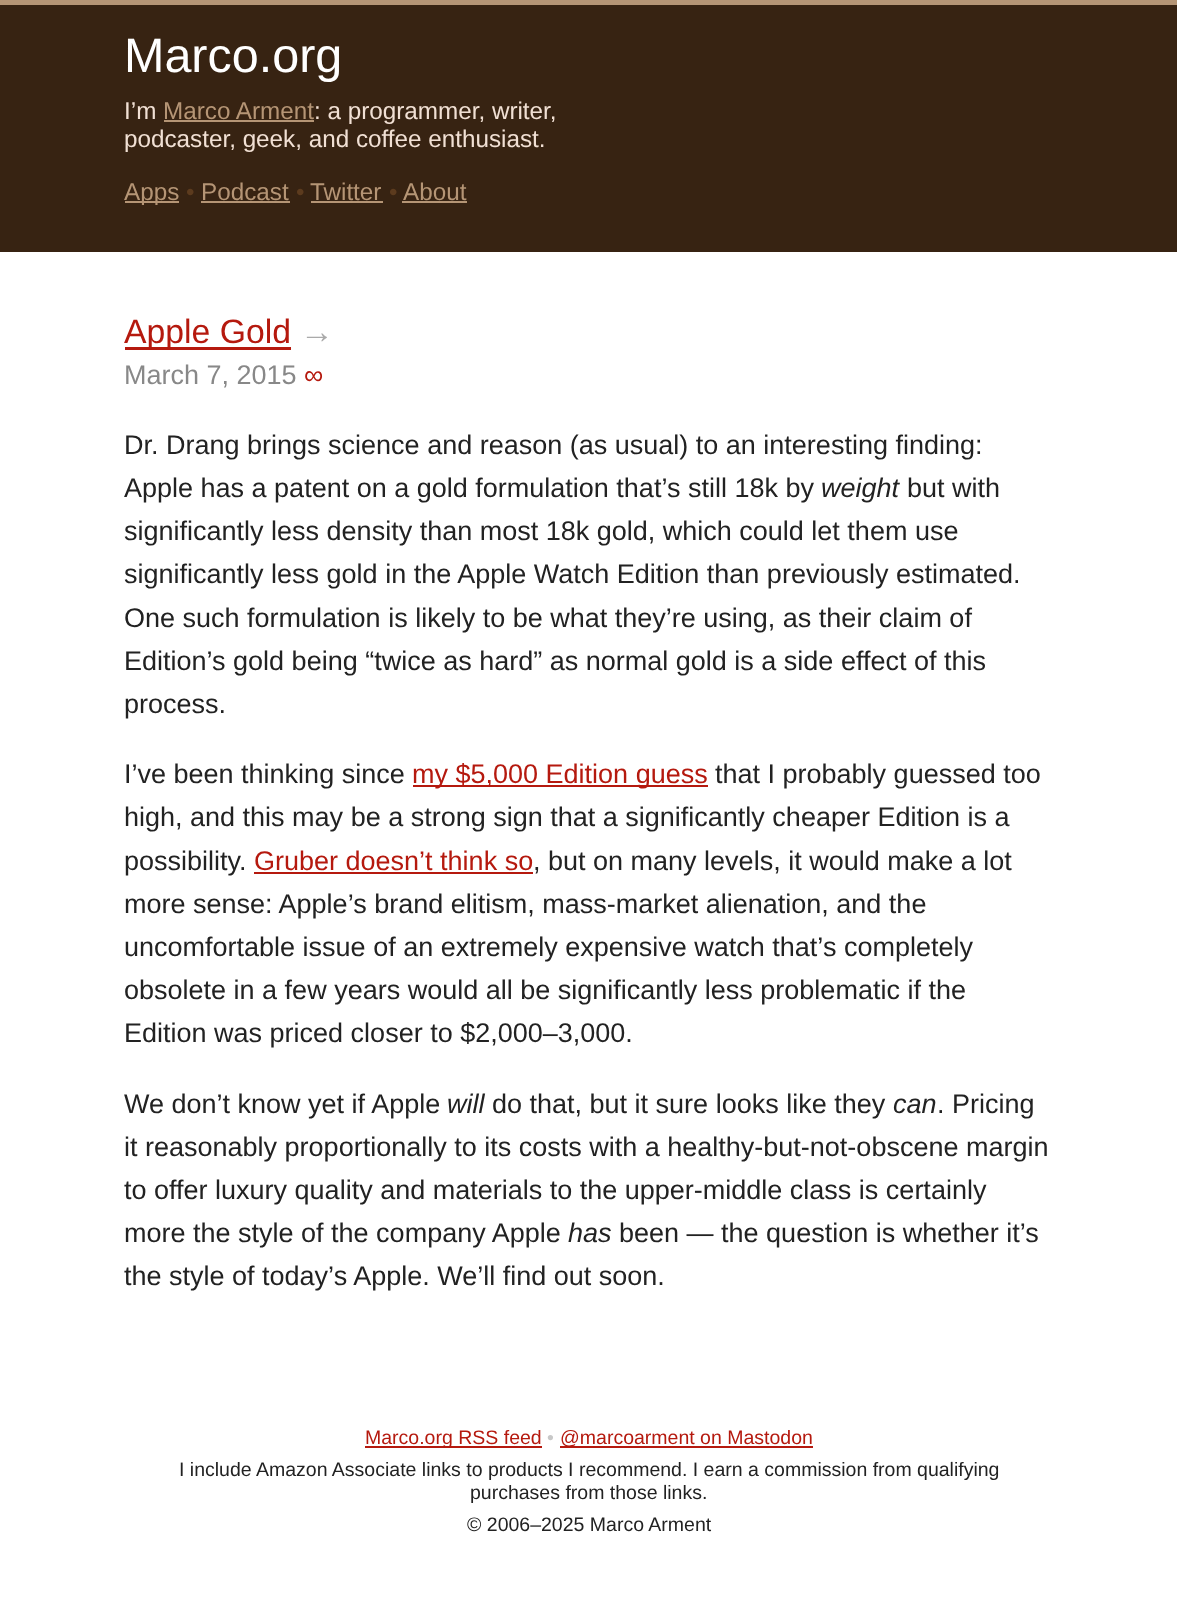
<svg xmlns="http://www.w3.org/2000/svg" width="1177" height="1619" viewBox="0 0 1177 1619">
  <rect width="100%" height="100%" fill="#fff"/>
  <path d="M0 0h1177v5H0z" fill="#b59575"/>
  <path d="M0 5h1177v247H0z" fill="#372312"/>
  <path d="M164 120h150v2H164z" fill="#b59575"/>
  <path d="M125 201h54v2H125z" fill="#b59575"/>
  <path d="M201 201h89v2H201z" fill="#b59575"/>
  <path d="M311 201h72v2H311z" fill="#b59575"/>
  <path d="M402 201h65v2H402z" fill="#b59575"/>
  <path d="M125 347h166v3H125z" fill="#b5190e"/>
  <path d="M413 785h295v2H413z" fill="#b5190e"/>
  <path d="M254 872h279v2H254z" fill="#b5190e"/>
  <path d="M365 1446h177v2H365z" fill="#b5190e"/>
  <path d="M560 1446h253v2H560z" fill="#b5190e"/>
  <text x="124" y="72" font-family="Liberation Sans" font-size="48.5" fill="#fff">Marco.org</text>
  <text x="124" y="119" font-family="Liberation Sans" font-size="24.25" fill="#f1e0d4">I’m</text>
  <text x="163" y="119" font-family="Liberation Sans" font-size="24.25" fill="#b59575">Marco Arment</text>
  <g font-family="Liberation Sans" font-size="24.25" fill="#f1e0d4">
    <text x="314" y="119">: a programmer, writer,</text>
    <text x="124" y="147">podcaster, geek, and coffee enthusiast.</text>
  </g>
  <text x="124" y="200" font-family="Liberation Sans" font-size="24.25" fill="#b59575">Apps</text>
  <text x="186" y="200" font-family="Liberation Sans" font-size="24.25" fill="#5c3b1e">•</text>
  <text x="201" y="200" font-family="Liberation Sans" font-size="24.25" fill="#b59575">Podcast</text>
  <text x="296" y="200" font-family="Liberation Sans" font-size="24.25" fill="#5c3b1e">•</text>
  <text x="310" y="200" font-family="Liberation Sans" font-size="24.25" fill="#b59575">Twitter</text>
  <text x="389" y="200" font-family="Liberation Sans" font-size="24.25" fill="#5c3b1e">•</text>
  <text x="403" y="200" font-family="Liberation Sans" font-size="24.25" fill="#b59575">About</text>
  <text x="124" y="343" font-family="Liberation Sans" font-size="33.75" fill="#b5190e">Apple Gold</text>
  <text x="300" y="343" font-family="Liberation Sans" font-size="33.75" fill="#aaa">→</text>
  <text x="124" y="384" font-family="Liberation Sans" font-size="27" fill="#888">March 7, 2015</text>
  <text x="304" y="384" font-family="Liberation Sans" font-size="27" fill="#b5190e">∞</text>
  <g font-family="Liberation Sans" font-size="27" fill="#222">
    <text x="124" y="454">Dr. Drang brings science and reason (as usual) to an interesting finding:</text>
    <text x="124" y="497">Apple has a patent on a gold formulation that’s still 18k by</text>
  </g>
  <text x="821" y="497" font-family="Liberation Sans" font-size="27" font-style="italic" fill="#222">weight</text>
  <g font-family="Liberation Sans" font-size="27" fill="#222">
    <text x="907" y="497">but with</text>
    <text x="124" y="540">significantly less density than most 18k gold, which could let them use</text>
    <text x="124" y="583">significantly less gold in the Apple Watch Edition than previously estimated.</text>
    <text x="124" y="627">One such formulation is likely to be what they’re using, as their claim of</text>
    <text x="124" y="670">Edition’s gold being “twice as hard” as normal gold is a side effect of this</text>
    <text x="124" y="713">process.</text>
    <text x="124" y="783">I’ve been thinking since</text>
  </g>
  <text x="412" y="783" font-family="Liberation Sans" font-size="27" fill="#b5190e">my $5,000 Edition guess</text>
  <g font-family="Liberation Sans" font-size="27" fill="#222">
    <text x="715" y="783">that I probably guessed too</text>
    <text x="124" y="826">high, and this may be a strong sign that a significantly cheaper Edition is a</text>
    <text x="124" y="870">possibility.</text>
  </g>
  <text x="254" y="870" font-family="Liberation Sans" font-size="27" fill="#b5190e">Gruber doesn’t think so</text>
  <g font-family="Liberation Sans" font-size="27" fill="#222">
    <text x="533" y="870">, but on many levels, it would make a lot</text>
    <text x="124" y="913">more sense: Apple’s brand elitism, mass-market alienation, and the</text>
    <text x="124" y="956">uncomfortable issue of an extremely expensive watch that’s completely</text>
    <text x="124" y="999">obsolete in a few years would all be significantly less problematic if the</text>
    <text x="124" y="1042">Edition was priced closer to $2,000–3,000.</text>
    <text x="124" y="1113">We don’t know yet if Apple</text>
  </g>
  <text x="447" y="1113" font-family="Liberation Sans" font-size="27" font-style="italic" fill="#222">will</text>
  <text x="492" y="1113" font-family="Liberation Sans" font-size="27" fill="#222">do that, but it sure looks like they</text>
  <text x="893" y="1113" font-family="Liberation Sans" font-size="27" font-style="italic" fill="#222">can</text>
  <g font-family="Liberation Sans" font-size="27" fill="#222">
    <text x="937" y="1113">. Pricing</text>
    <text x="124" y="1156">it reasonably proportionally to its costs with a healthy-but-not-obscene margin</text>
    <text x="124" y="1199">to offer luxury quality and materials to the upper-middle class is certainly</text>
    <text x="124" y="1242">more the style of the company Apple</text>
  </g>
  <text x="568" y="1242" font-family="Liberation Sans" font-size="27" font-style="italic" fill="#222">has</text>
  <g font-family="Liberation Sans" font-size="27" fill="#222">
    <text x="619" y="1242">been — the question is whether it’s</text>
    <text x="124" y="1285">the style of today’s Apple. We’ll find out soon.</text>
  </g>
  <text x="365" y="1444" font-family="Liberation Sans" font-size="19.5" fill="#b5190e">Marco.org RSS feed</text>
  <text x="547" y="1444" font-family="Liberation Sans" font-size="19.5" fill="#c8c8c8">•</text>
  <text x="560" y="1444" font-family="Liberation Sans" font-size="19.5" fill="#b5190e">@marcoarment on Mastodon</text>
  <g font-family="Liberation Sans" font-size="19.5" fill="#222">
    <text x="179" y="1476">I include Amazon Associate links to products I recommend. I earn a commission from qualifying</text>
    <text x="470" y="1499">purchases from those links.</text>
    <text x="467" y="1531">© 2006–2025 Marco Arment</text>
  </g>
</svg>
